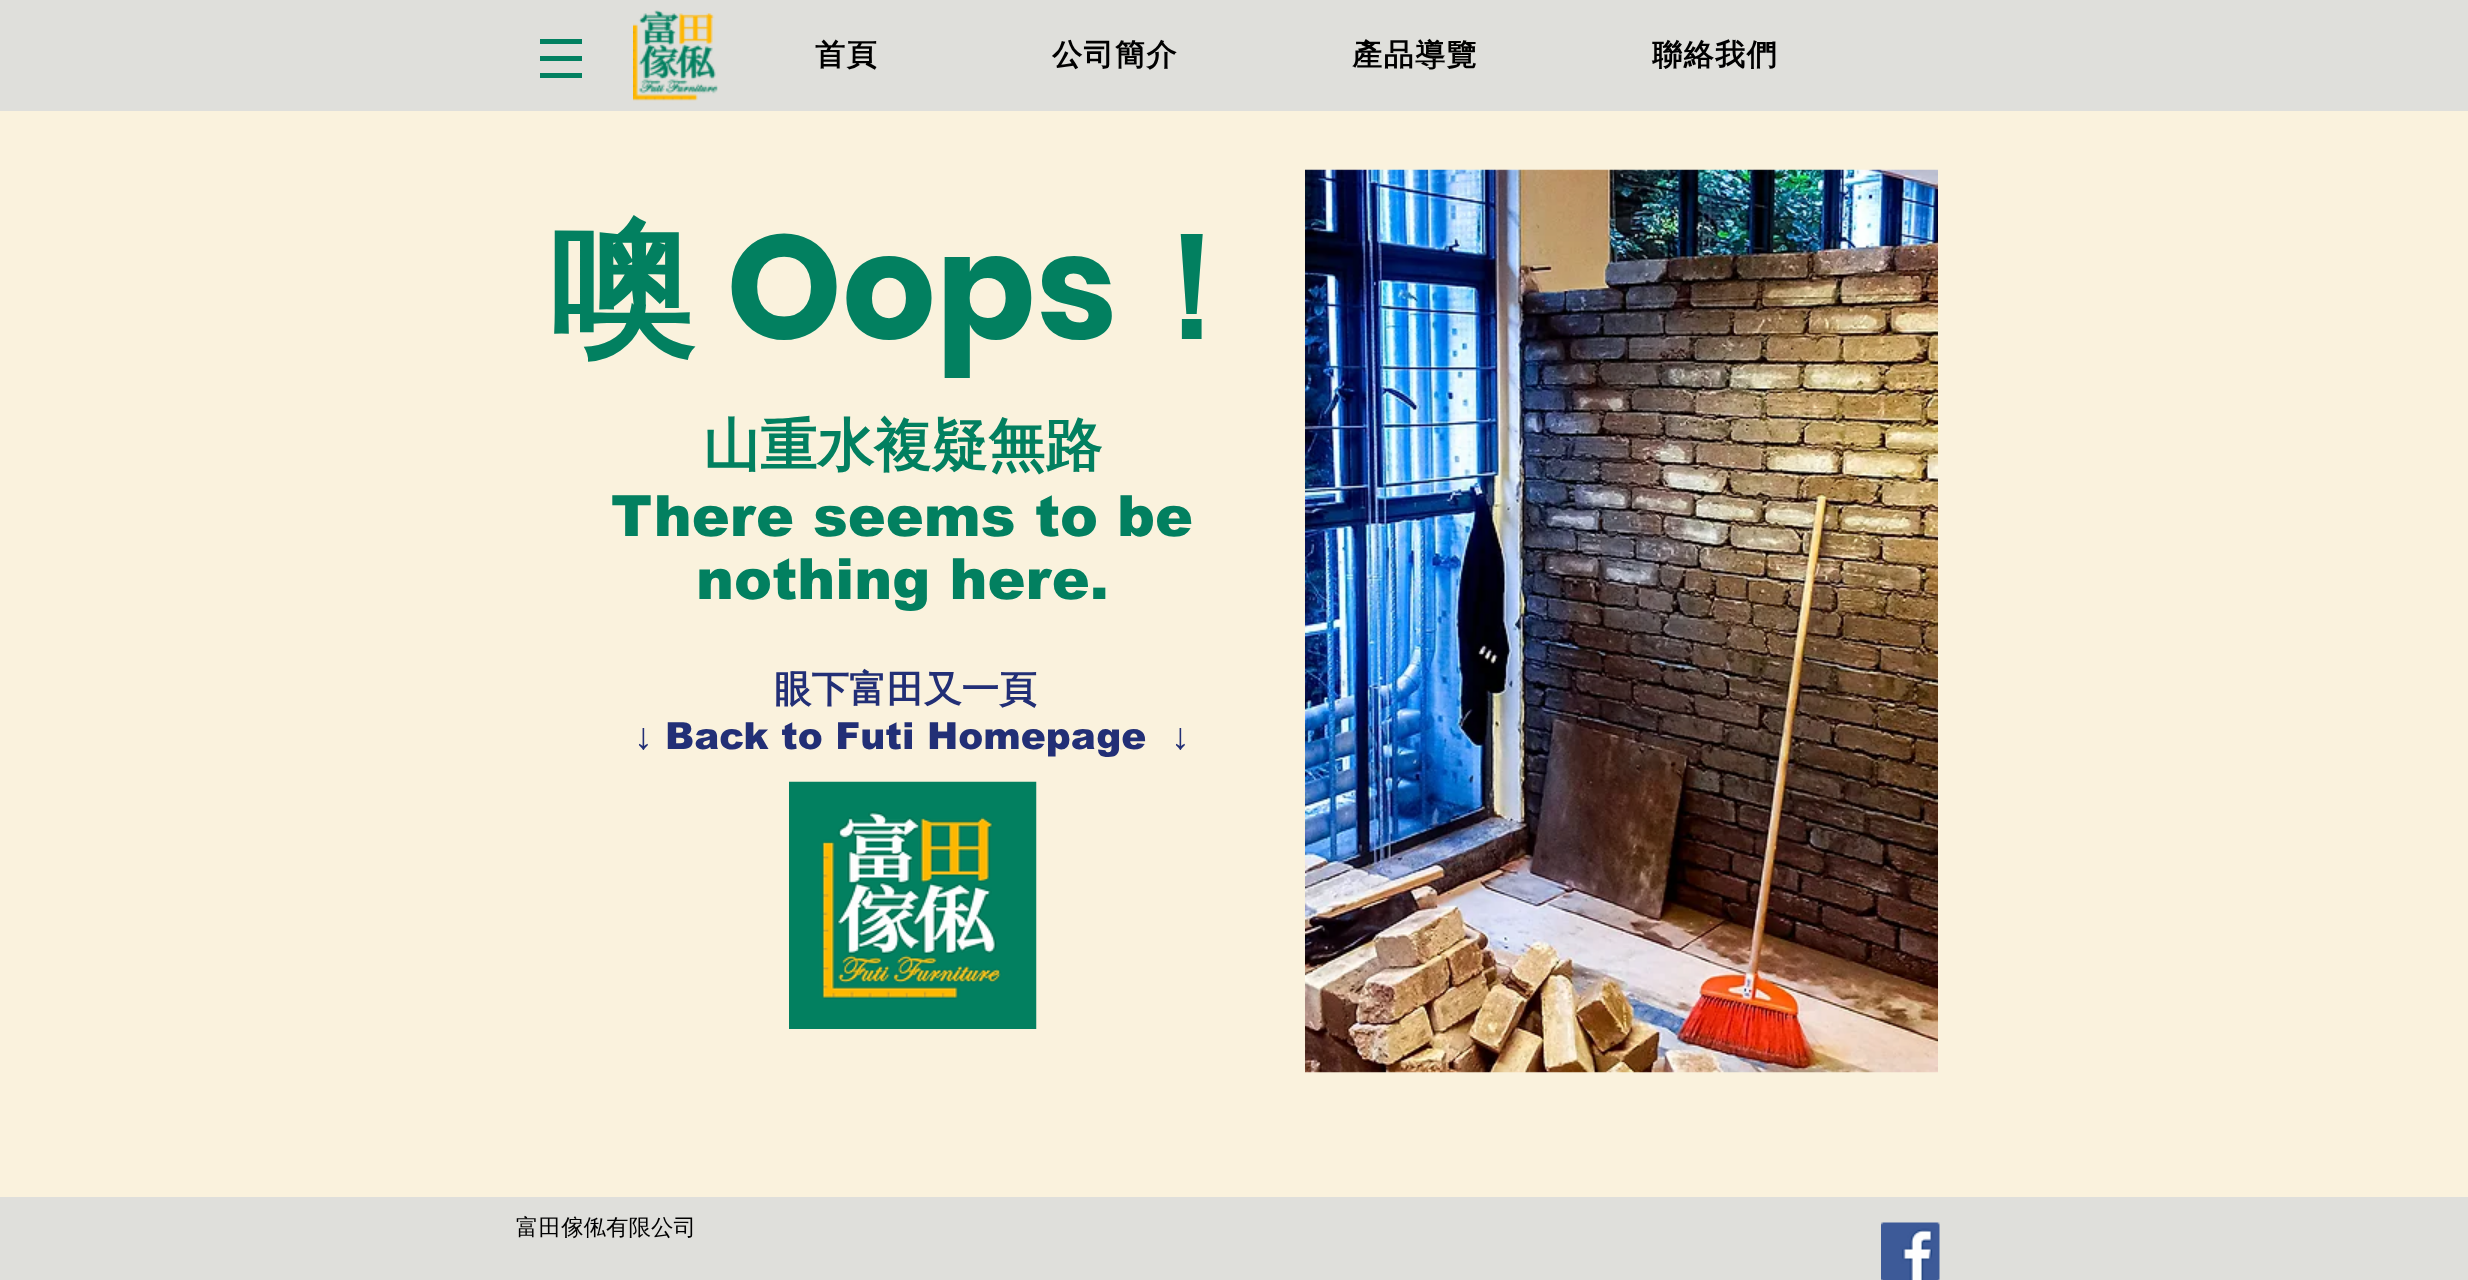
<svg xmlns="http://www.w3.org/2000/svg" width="2468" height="1280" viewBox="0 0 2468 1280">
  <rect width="100%" height="100%" fill="#dfdfdb"/>
  <path d="M540 73h42v5H540z" fill="#028060"/>
  <path d="M540 39h42v5H540z" fill="#028060"/>
  <path d="M540 56h42v5H540z" fill="#028060"/>
  <image x="633" y="10" width="85" height="91" href="img/1.png"/>
  <path d="M0 111h2468v1086H0z" fill="#faf2dd"/>
  <image x="1305" y="169" width="633" height="904" href="img/2.png"/>
  <image x="789" y="781" width="248" height="248" href="img/3.png"/>
  <image x="1881" y="1222" width="59" height="58" href="img/4.png"/>
  <g font-family="WenQuanYi Zen Hei" font-size="30" font-weight="bold" letter-spacing="1.5" fill="#000">
    <text x="815" y="65">首頁</text>
    <text x="1052" y="65">公司簡介</text>
    <text x="1352" y="65">產品導覽</text>
    <text x="1652" y="65">聯絡我們</text>
  </g>
  <text x="549" y="339" font-family="WenQuanYi Zen Hei" font-size="147" font-weight="bold" fill="#028060">噢</text>
  <text x="726" y="339" font-family="Poppins" font-size="147" font-weight="bold" fill="#028060">Oops</text>
  <text x="1117" y="339" font-family="WenQuanYi Zen Hei" font-size="147" font-weight="bold" fill="#028060">！</text>
  <text x="703" y="465" font-family="WenQuanYi Zen Hei" font-size="57" font-weight="bold" fill="#028060">山重水複疑無路</text>
  <g font-family="arial" font-size="57" font-weight="900" fill="#028060">
    <text x="611" y="536">There seems to be</text>
    <text x="696" y="599">nothing here.</text>
  </g>
  <text x="774" y="702" font-family="WenQuanYi Zen Hei" font-size="37.5" font-weight="bold" fill="#222f76">眼下富田又一頁</text>
  <text x="634" y="749" font-family="Liberation Sans" font-size="37.5" font-weight="bold" fill="#222f76">↓</text>
  <text x="665" y="749" font-family="arial" font-size="37.5" font-weight="900" fill="#222f76">Back to Futi Homepage</text>
  <text x="1171" y="749" font-family="Liberation Sans" font-size="37.5" font-weight="bold" fill="#222f76">↓</text>
  <text x="516" y="1235" font-family="WenQuanYi Zen Hei" font-size="22.5" font-weight="500" fill="#000">富田傢俬有限公司</text>
</svg>
